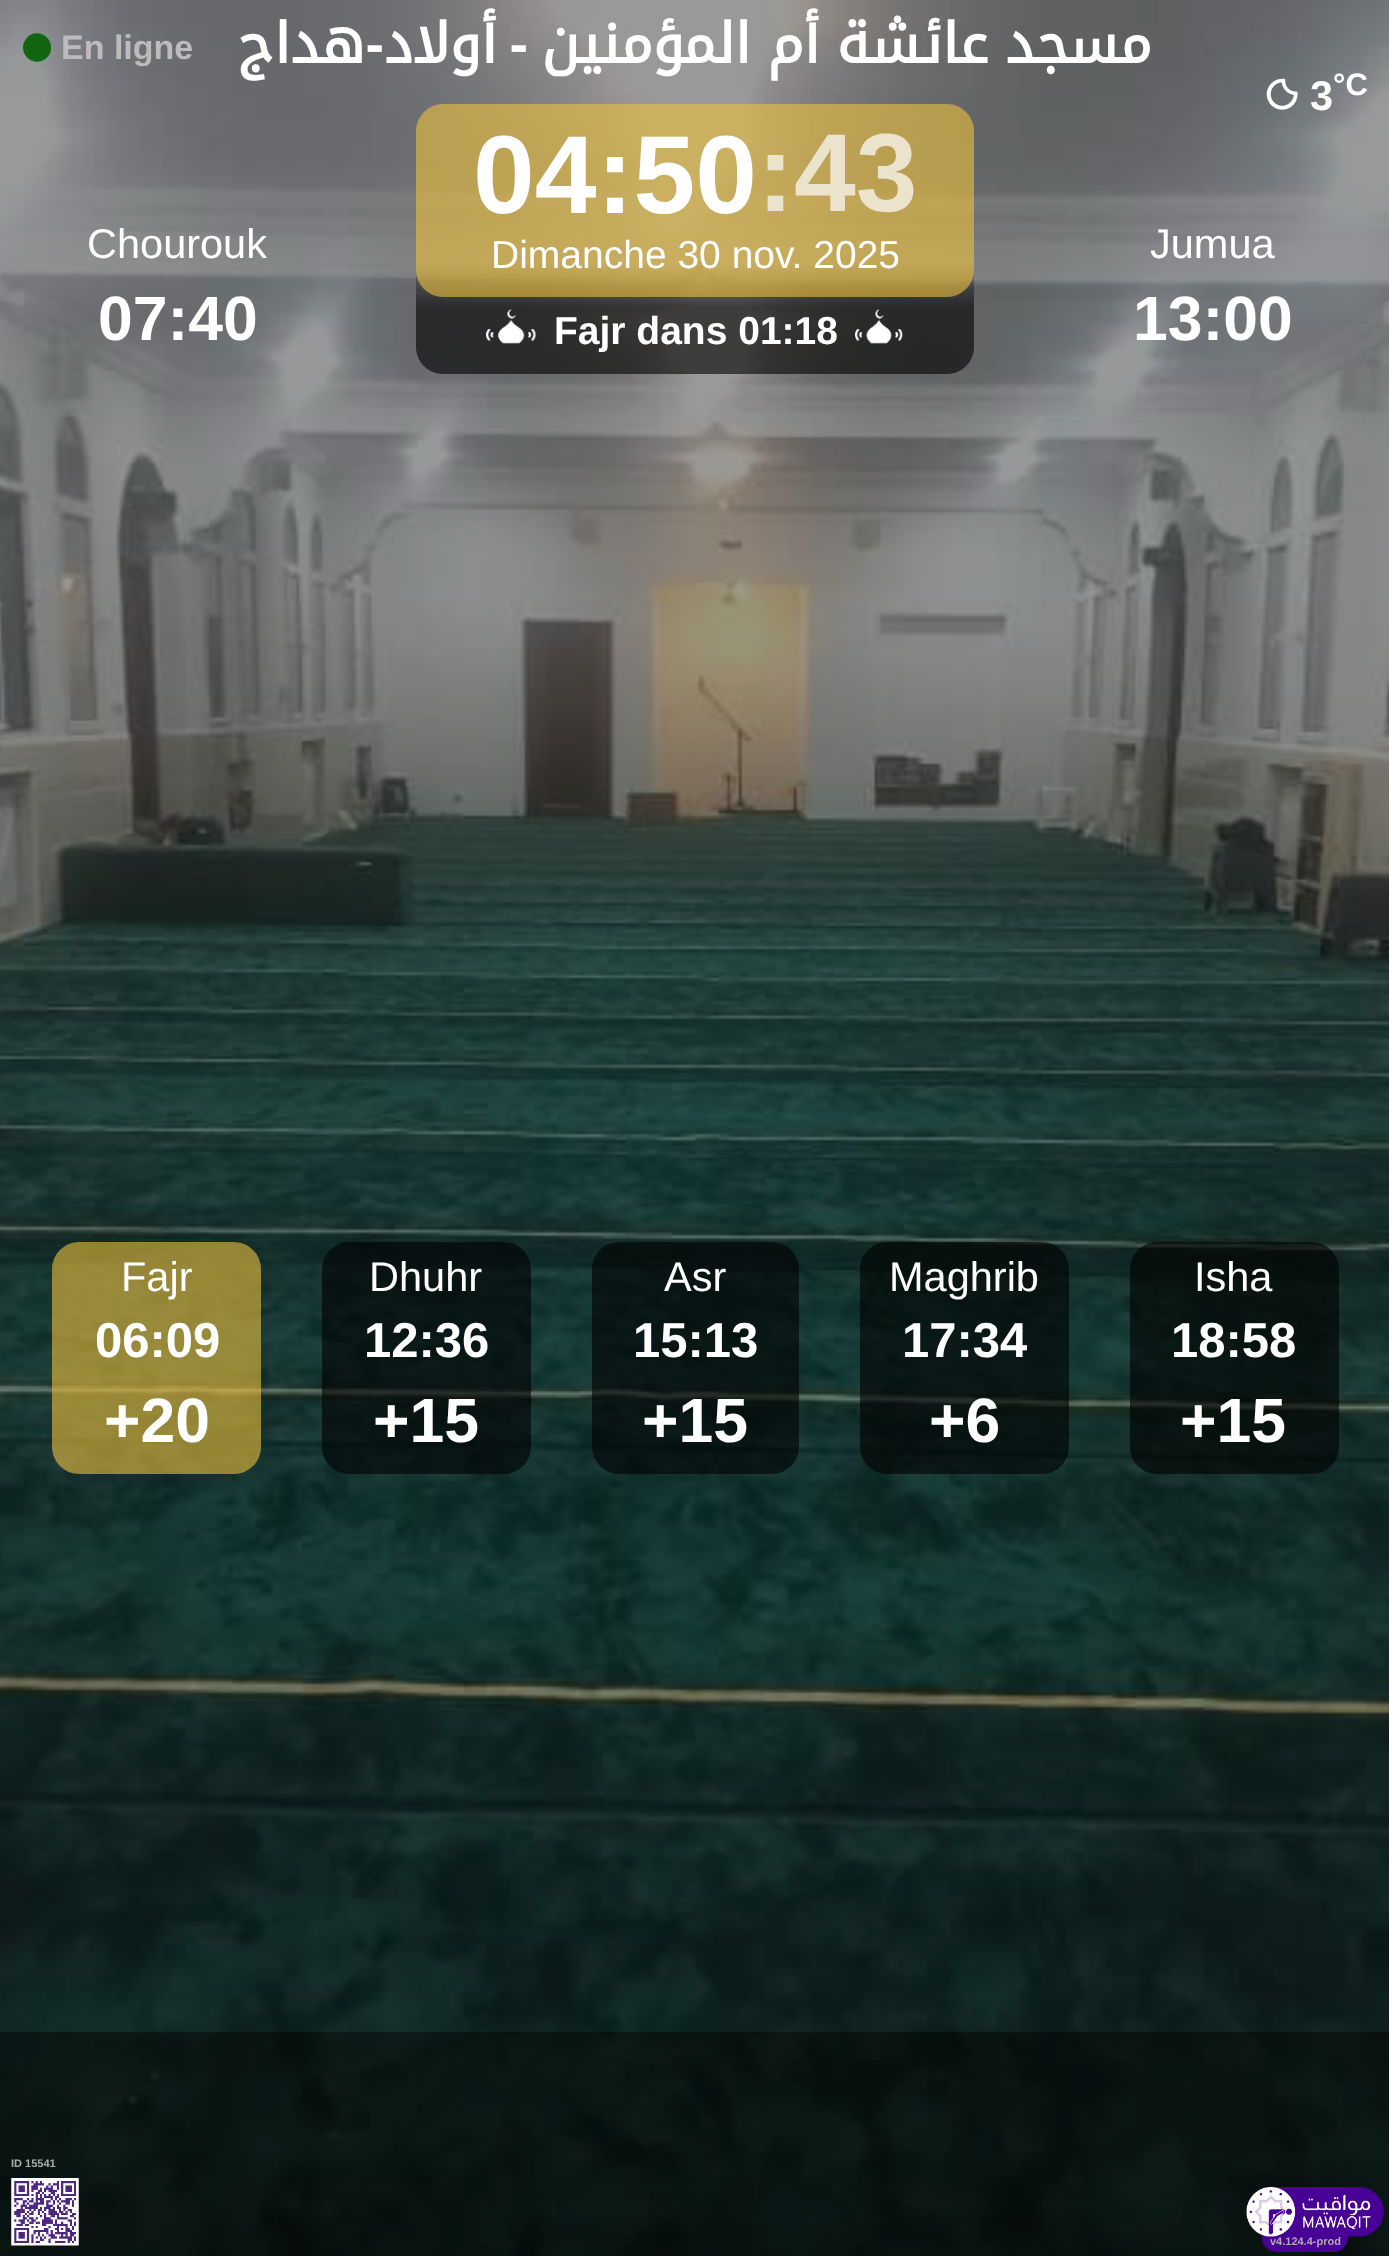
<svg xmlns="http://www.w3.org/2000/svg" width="1389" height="2256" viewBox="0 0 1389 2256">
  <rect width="100%" height="100%" fill="#fff"/>
  <image x="0" y="0" width="1389" height="2256" href="img/1.png"/>
  <path d="M27 37.5C36.5 28 52.5 36 51 49C51 52.5 49.5 55 47 57.5C37.5 67 22 59.5 23 46C23.5 43 25 40 27 37.5Z" fill="#126611"/>
  <image x="1266" y="78" width="32" height="32" href="img/2.png"/>
  <rect x="416" y="104" width="558" height="193" rx="27" fill="#ecc03d99"/>
  <image x="486" y="309" width="50" height="35" href="img/3.png"/>
  <image x="855" y="309" width="48" height="35" href="img/4.png"/>
  <rect x="52" y="1242" width="209" height="232" rx="27" fill="#ecc03d99"/>
  <rect x="322" y="1242" width="209" height="232" rx="27" fill="#00000099"/>
  <rect x="592" y="1242" width="207" height="232" rx="27" fill="#00000099"/>
  <rect x="860" y="1242" width="209" height="232" rx="27" fill="#00000099"/>
  <rect x="1130" y="1242" width="209" height="232" rx="27" fill="#00000099"/>
  <path d="M0 2032h1389v224H0z" fill="#00000066"/>
  <image x="11" y="2178" width="68" height="68" href="img/5.png"/>
  <path d="M1262 2232H1348V2238C1348 2245.5 1341.5 2252 1334 2252H1276C1268.5 2252 1262 2245.5 1262 2238Z" fill="#490094"/>
  <text x="61" y="59" font-family="Liberation Sans" font-size="34" font-weight="bold" fill="#bdbbbb">En ligne</text>
  <text x="365" y="63" font-family="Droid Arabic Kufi" font-size="55.6" font-weight="bold" direction="rtl" fill="#fff">هداج</text>
  <text x="384" y="63" font-family="Liberation Sans" font-size="55.6" font-weight="bold" direction="rtl" fill="#fff">-</text>
  <text x="497" y="63" font-family="Droid Arabic Kufi" font-size="55.6" font-weight="bold" direction="rtl" fill="#fff">أولاد</text>
  <text x="528" y="63" font-family="Liberation Sans" font-size="55.6" font-weight="bold" direction="rtl" fill="#fff">-</text>
  <text x="1152" y="63" word-spacing="-2" font-family="Droid Arabic Kufi" font-size="55.6" font-weight="bold" direction="rtl" fill="#fff">مسجد عائشة أم المؤمنين</text>
  <text x="1310" y="110" font-family="Liberation Sans" font-size="41.5" font-weight="bold" fill="#fff">3</text>
  <text x="1333" y="95" font-family="Liberation Sans" font-size="31" font-weight="bold" fill="#fff">°C</text>
  <text x="87" y="258" font-family="Liberation Sans" font-size="41.5" fill="#fff">Chourouk</text>
  <text x="98" y="340" font-family="Liberation Sans" font-size="62.5" font-weight="bold" fill="#fff">07:40</text>
  <text x="473" y="213" font-family="Liberation Sans" font-size="111" font-weight="bold" fill="#fff">04:50</text>
  <text x="757" y="211" font-family="Liberation Sans" font-size="111" font-weight="bold" fill="#ebe3cc">:43</text>
  <text x="491" y="268" font-family="Liberation Sans" font-size="39" fill="#fff">Dimanche 30 nov. 2025</text>
  <text x="554" y="344" font-family="Liberation Sans" font-size="39" font-weight="bold" fill="#fff">Fajr dans 01:18</text>
  <text x="1150" y="258" font-family="Liberation Sans" font-size="41.5" fill="#fff">Jumua</text>
  <text x="1133" y="340" font-family="Liberation Sans" font-size="62.5" font-weight="bold" fill="#fff">13:00</text>
  <text x="121" y="1291" font-family="Liberation Sans" font-size="41.5" fill="#fff">Fajr</text>
  <text x="95" y="1357" font-family="Liberation Sans" font-size="49" font-weight="bold" fill="#fff">06:09</text>
  <text x="104" y="1442" font-family="Liberation Sans" font-size="62.5" font-weight="bold" fill="#fff">+20</text>
  <text x="369" y="1291" font-family="Liberation Sans" font-size="41.5" fill="#fff">Dhuhr</text>
  <text x="364" y="1357" font-family="Liberation Sans" font-size="49" font-weight="bold" fill="#fff">12:36</text>
  <text x="373" y="1442" font-family="Liberation Sans" font-size="62.5" font-weight="bold" fill="#fff">+15</text>
  <text x="664" y="1291" font-family="Liberation Sans" font-size="41.5" fill="#fff">Asr</text>
  <text x="633" y="1357" font-family="Liberation Sans" font-size="49" font-weight="bold" fill="#fff">15:13</text>
  <text x="642" y="1442" font-family="Liberation Sans" font-size="62.5" font-weight="bold" fill="#fff">+15</text>
  <text x="889" y="1291" font-family="Liberation Sans" font-size="41.5" fill="#fff">Maghrib</text>
  <text x="902" y="1357" font-family="Liberation Sans" font-size="49" font-weight="bold" fill="#fff">17:34</text>
  <text x="929" y="1442" font-family="Liberation Sans" font-size="62.5" font-weight="bold" fill="#fff">+6</text>
  <text x="1194" y="1291" font-family="Liberation Sans" font-size="41.5" fill="#fff">Isha</text>
  <text x="1171" y="1357" font-family="Liberation Sans" font-size="49" font-weight="bold" fill="#fff">18:58</text>
  <text x="1180" y="1442" font-family="Liberation Sans" font-size="62.5" font-weight="bold" fill="#fff">+15</text>
  <g font-family="Liberation Sans" font-size="11" font-weight="bold" fill="#adadad">
    <text x="11" y="2167">ID 15541</text>
    <text x="1270" y="2245">v4.124.4-prod</text>
  </g>
  <image x="1246" y="2187" width="138" height="50" href="img/6.png"/>
</svg>
